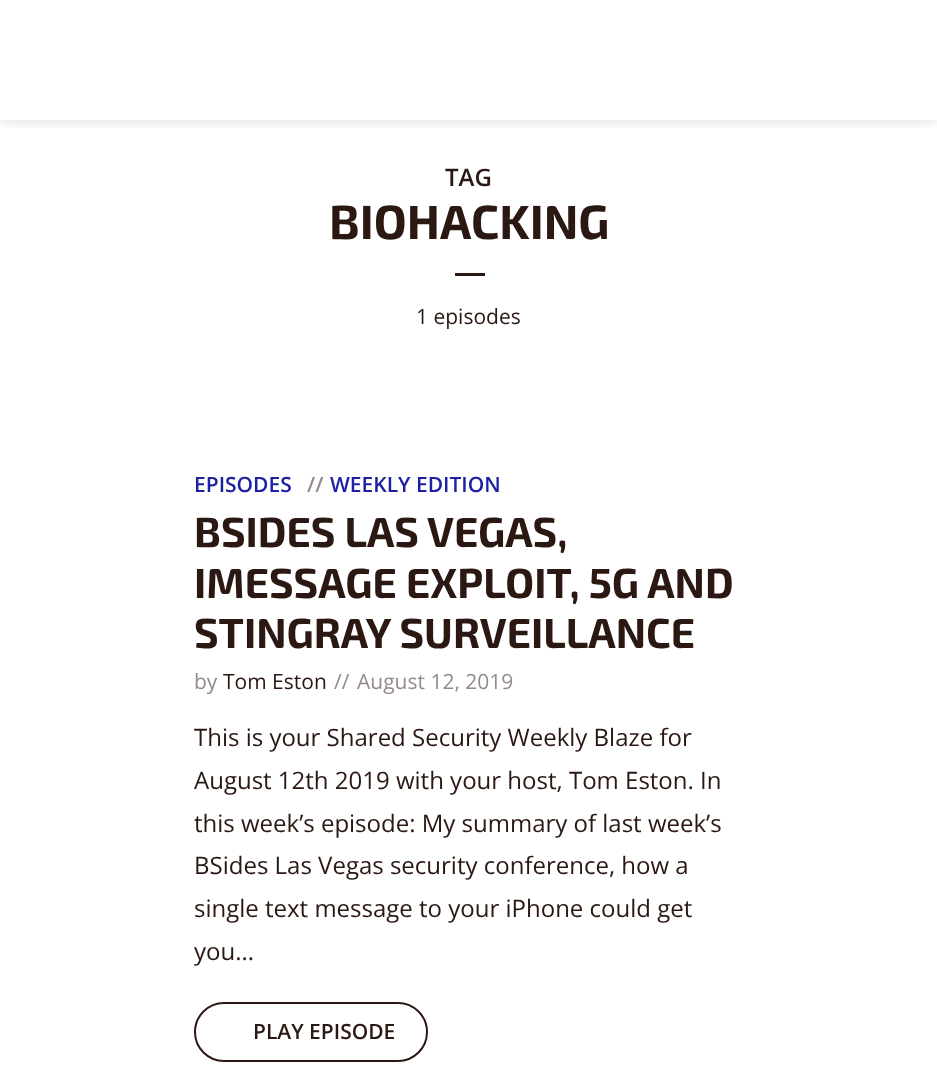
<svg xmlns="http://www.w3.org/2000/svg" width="937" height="1080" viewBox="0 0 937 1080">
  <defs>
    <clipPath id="clip1"><path d="M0 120h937v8H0z"/></clipPath>
  </defs>
  <rect width="100%" height="100%" fill="#fff"/>
  <g clip-path="url(#clip1)">
    <path d="M0 0h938v120H0z" fill="#00000026" filter="blur(7.5px)"/>
  </g>
  <path d="M455 273h30v3H455z" fill="#2b1813"/>
  <rect x="195" y="1003" width="232" height="58" rx="29" fill="none" stroke="#2b1813" stroke-width="2"/>
  <text x="445" y="186" font-family="Open Sans" font-size="24" font-weight="600" fill="#2b1813">TAG</text>
  <text x="329" y="239" font-family="'Exo 2'" font-size="48" font-weight="bold" fill="#2b1813">BIOHACKING</text>
  <text x="416" y="324" font-family="Open Sans" font-size="21" fill="#2b1813">1 episodes</text>
  <text x="194" y="492" font-family="Open Sans" font-size="21" font-weight="600" fill="#1c21a3">EPISODES</text>
  <text x="307" y="492" font-family="Open Sans" font-size="21" font-weight="600" fill="#958c89">//</text>
  <text x="330" y="492" font-family="Open Sans" font-size="21" font-weight="600" fill="#1c21a3">WEEKLY EDITION</text>
  <g font-family="'Exo 2'" font-size="42" font-weight="bold" fill="#2b1813">
    <text x="194" y="547">BSIDES LAS VEGAS,</text>
    <text x="194" y="598">IMESSAGE EXPLOIT, 5G AND</text>
    <text x="194" y="648">STINGRAY SURVEILLANCE</text>
  </g>
  <text x="194" y="689" font-family="Open Sans" font-size="21" fill="#958c89">by</text>
  <text x="223" y="689" font-family="Open Sans" font-size="21" fill="#2b1813">Tom Eston</text>
  <g font-family="Open Sans" font-size="21" fill="#958c89">
    <text x="334" y="689">//</text>
    <text x="357" y="689">August 12, 2019</text>
  </g>
  <g font-family="Open Sans" font-size="24" fill="#2b1813">
    <text x="194" y="746">This is your Shared Security Weekly Blaze for</text>
    <text x="194" y="789">August 12th 2019 with your host, Tom Eston. In</text>
    <text x="194" y="832">this week’s episode: My summary of last week’s</text>
    <text x="194" y="874">BSides Las Vegas security conference, how a</text>
    <text x="194" y="917">single text message to your iPhone could get</text>
    <text x="194" y="960">you...</text>
  </g>
  <text x="253" y="1039" font-family="Open Sans" font-size="21" font-weight="600" fill="#2b1813">PLAY EPISODE</text>
</svg>
